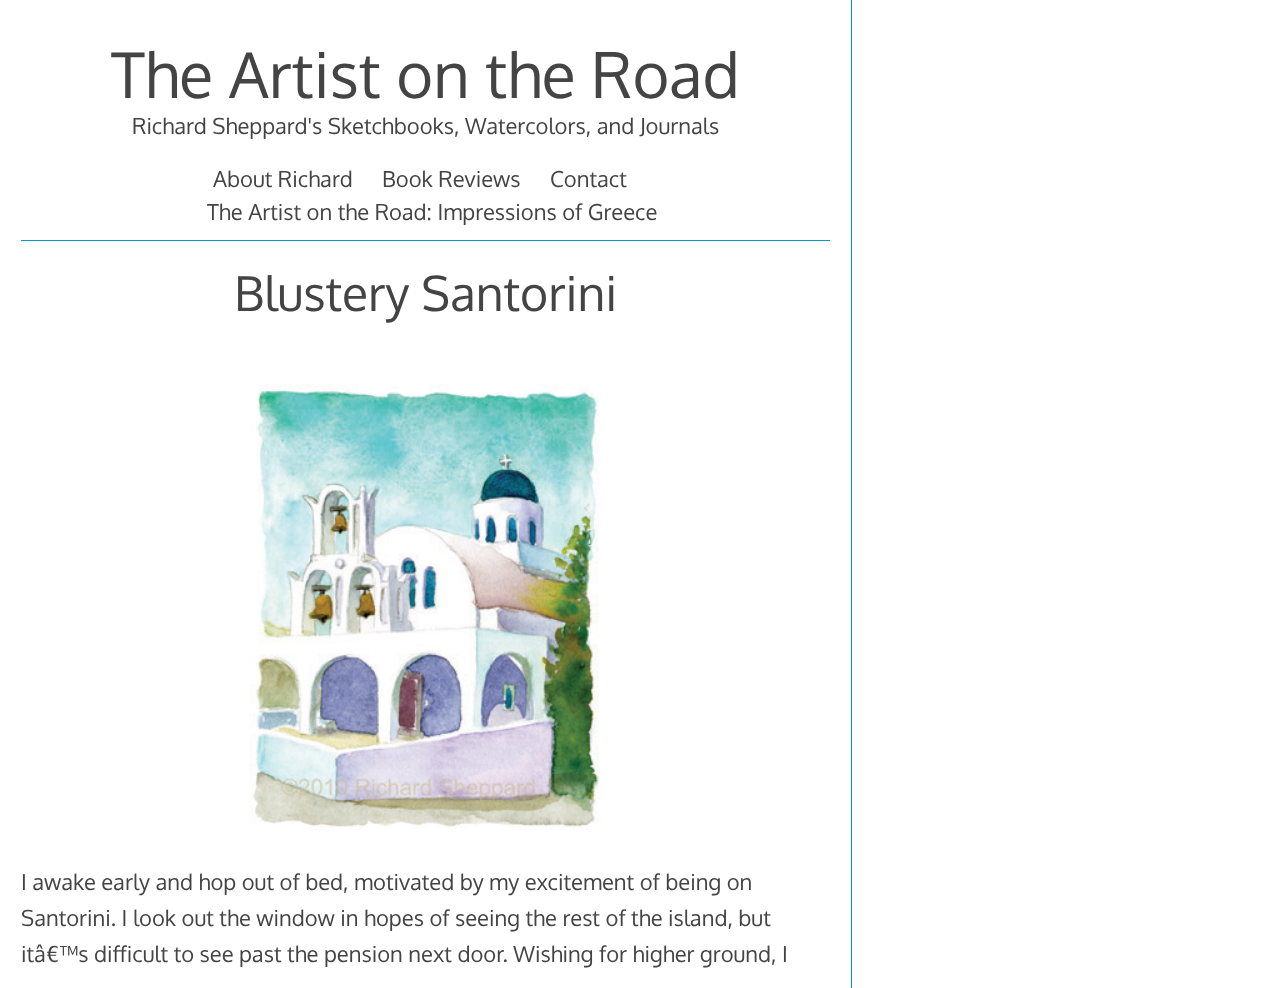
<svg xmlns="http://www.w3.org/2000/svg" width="1271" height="988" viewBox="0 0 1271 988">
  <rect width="100%" height="100%" fill="#fff"/>
  <path d="M21 240h809v1H21z" fill="#009bcd"/>
  <image x="249" y="384" width="350" height="446" href="img/1.png"/>
  <path d="M851 0h1v988H851z" fill="#009bcd"/>
  <text x="111" y="98" font-family="Oxygen" font-size="63" fill="#444">The Artist on the Road</text>
  <g font-family="Oxygen" font-size="22" fill="#444">
    <text x="132" y="134">Richard Sheppard's Sketchbooks, Watercolors, and Journals</text>
    <text x="213" y="187">About Richard</text>
    <text x="382" y="187">Book Reviews</text>
    <text x="550" y="187">Contact</text>
    <text x="207" y="220">The Artist on the Road: Impressions of Greece</text>
  </g>
  <text x="234" y="311" font-family="Oxygen" font-size="48" fill="#444">Blustery Santorini</text>
  <g font-family="Oxygen" font-size="22" fill="#444">
    <text x="21" y="890">I awake early and hop out of bed, motivated by my excitement of being on</text>
    <text x="21" y="926">Santorini. I look out the window in hopes of seeing the rest of the island, but</text>
    <text x="21" y="962">itâ€™s difficult to see past the pension next door. Wishing for higher ground, I</text>
  </g>
</svg>
